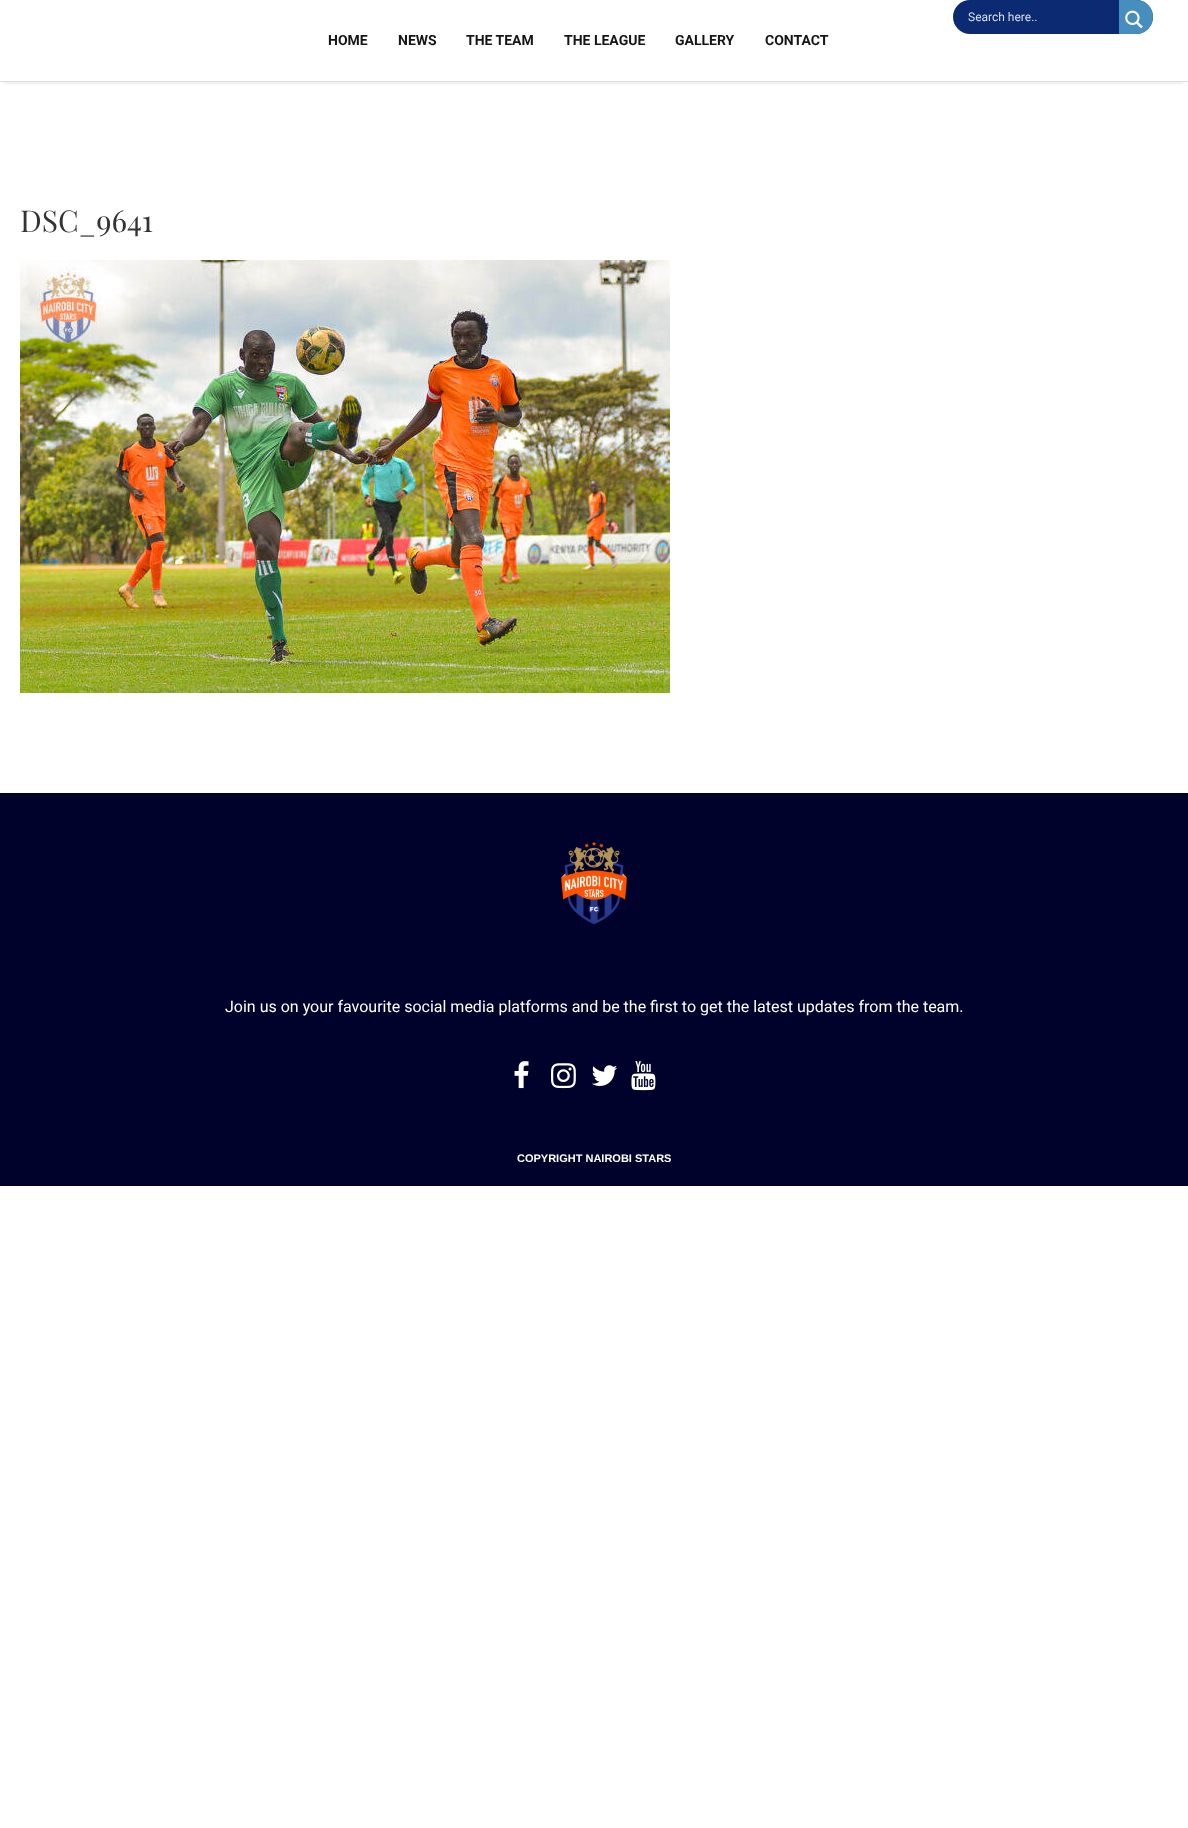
<svg xmlns="http://www.w3.org/2000/svg" width="1188" height="1828" viewBox="0 0 1188 1828">
  <defs>
    <clipPath id="clip1"><path d="M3 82h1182v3H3z"/></clipPath>
  </defs>
  <rect width="100%" height="100%" fill="#fff"/>
  <g clip-path="url(#clip1)">
    <path d="M4 9h1180v74H4z" fill="#0000001a" filter="blur(2.5px)"/>
  </g>
  <path d="M0 81h1188v1H0z" fill="#ddd"/>
  <rect x="953" width="200" height="34" rx="17" fill="#0c2a72"/>
  <path d="M1119 0H1136C1145.5 0 1153 7.5 1153 17C1153 26.5 1145.5 34 1136 34H1119Z" fill="#468ebe"/>
  <image x="1125" y="10" width="18" height="19" href="img/1.png"/>
  <image x="20" y="260" width="650" height="433" href="img/2.png"/>
  <path d="M0 793h1188v393H0z" fill="#00022c"/>
  <image x="561" y="841" width="67" height="84" href="img/3.png"/>
  <image x="514" y="1061" width="15" height="28" href="img/4.png"/>
  <image x="551" y="1063" width="25" height="26" href="img/5.png"/>
  <image x="592" y="1065" width="25" height="21" href="img/6.png"/>
  <image x="631" y="1061" width="25" height="30" href="img/7.png"/>
  <text x="968" y="21" font-family="Roboto" font-size="12" fill="#dbdfea">Search here..</text>
  <g font-family="Roboto" font-size="14" font-weight="bold" fill="#151515">
    <text x="328" y="45">HOME</text>
    <text x="398" y="45">NEWS</text>
    <text x="466" y="45">THE TEAM</text>
    <text x="564" y="45">THE LEAGUE</text>
    <text x="675" y="45">GALLERY</text>
    <text x="765" y="45">CONTACT</text>
  </g>
  <text x="20" y="232" font-family="Playfair Display" font-size="30" fill="#333">DSC_9641</text>
  <text x="225" y="1012" font-family="Roboto" font-size="16" fill="#fff">Join us on your favourite social media platforms and be the first to get the latest updates from the team.</text>
  <text x="517" y="1162" font-family="Liberation Sans" font-size="11" font-weight="bold" fill="#fff">COPYRIGHT NAIROBI STARS</text>
</svg>
